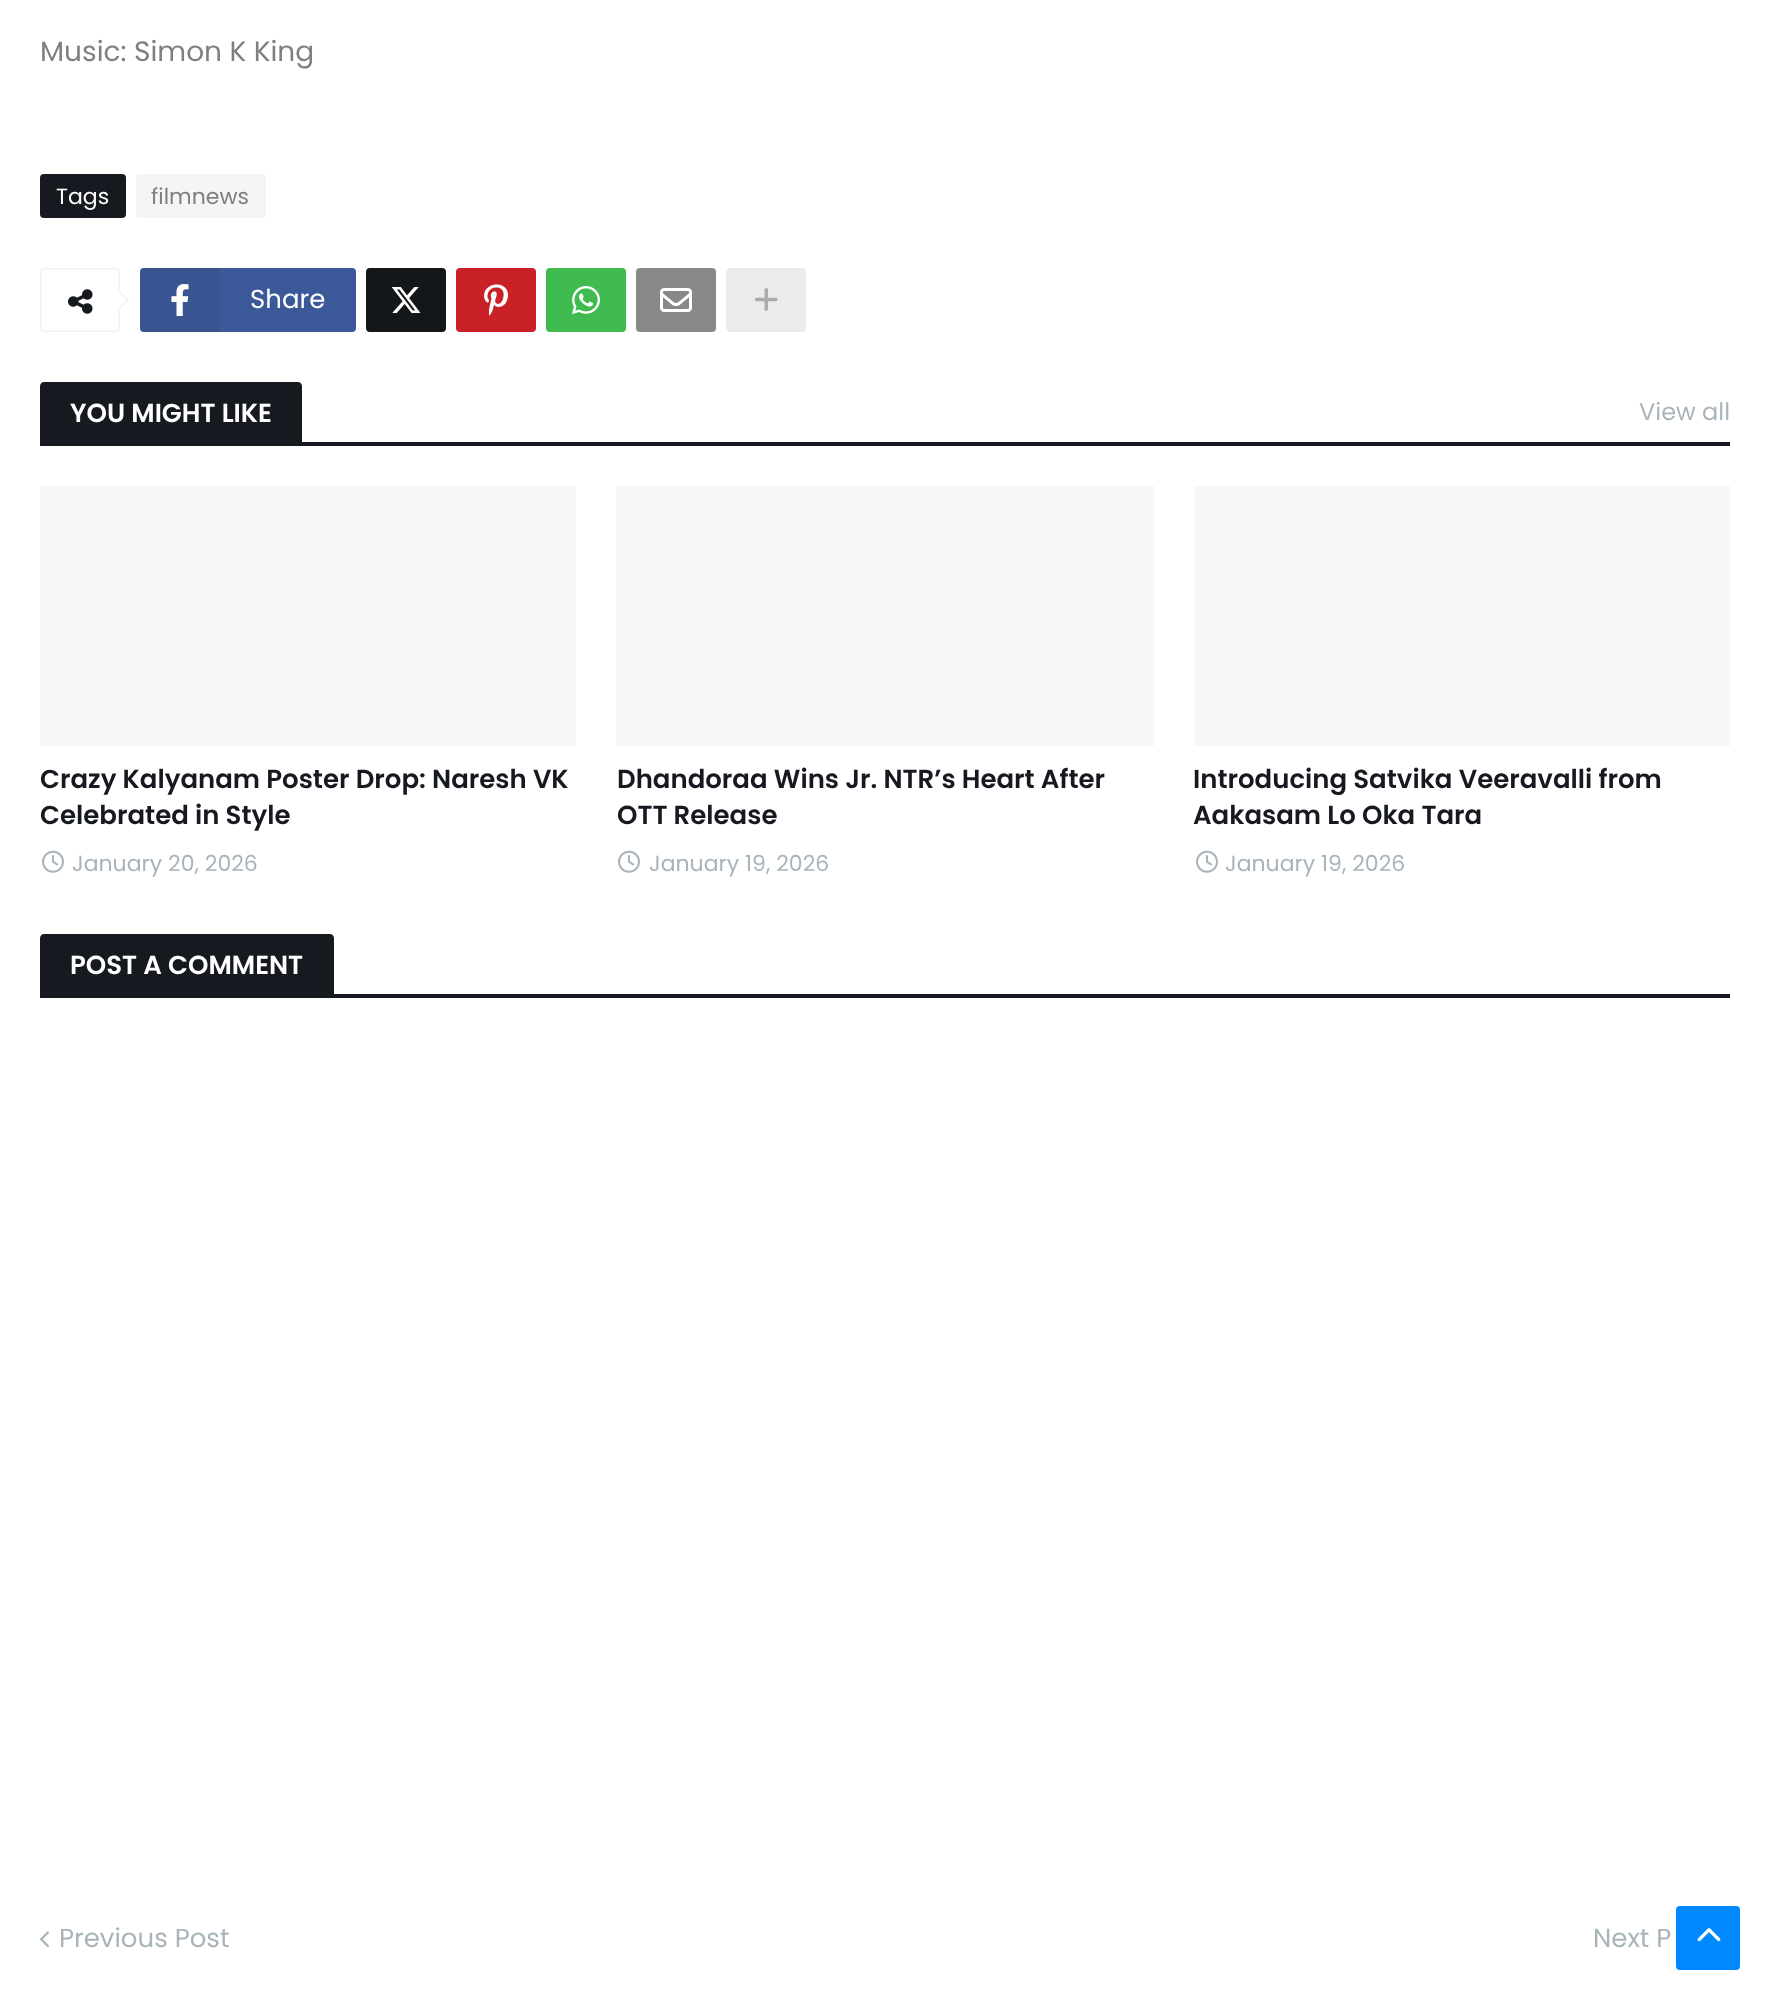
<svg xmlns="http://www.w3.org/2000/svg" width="1770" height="2010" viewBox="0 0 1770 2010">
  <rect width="100%" height="100%" fill="#fff"/>
  <rect x="40" y="174" width="86" height="44" rx="4" fill="#171921"/>
  <rect x="136" y="174" width="130" height="44" rx="4" fill="#f5f5f5"/>
  <rect x="41" y="269" width="78" height="62" rx="3" fill="none" stroke="#f5f5f5" stroke-width="2"/>
  <image x="68" y="289" width="25" height="25" href="img/1.png"/>
  <path d="M118 288.5L129.5 300L118 311.5L106.5 300Z" fill="#fff"/>
  <path d="M118 288.5L129.5 300H126.5L118 291.5ZM129.5 300L118 311.5V308.5L126.5 300Z" fill="#f5f5f5"/>
  <rect x="140" y="268" width="216" height="64" rx="4" fill="#3b5999"/>
  <path d="M140 268h80v64H140z" fill="#0000000d"/>
  <image x="171" y="284" width="18" height="32" href="img/2.png"/>
  <rect x="366" y="268" width="80" height="64" rx="4" fill="#14171a"/>
  <image x="391" y="287" width="30" height="26" href="img/3.png"/>
  <rect x="456" y="268" width="80" height="64" rx="4" fill="#ca2127"/>
  <image x="484" y="284" width="24" height="32" href="img/4.png"/>
  <rect x="546" y="268" width="80" height="64" rx="4" fill="#3fbb50"/>
  <image x="572" y="286" width="28" height="28" href="img/5.png"/>
  <rect x="636" y="268" width="80" height="64" rx="4" fill="#888"/>
  <image x="660" y="288" width="32" height="24" href="img/6.png"/>
  <rect x="726" y="268" width="80" height="64" rx="4" fill="#ebebeb"/>
  <image x="754" y="288" width="24" height="23" href="img/7.png"/>
  <path d="M302 442h1428v4H302z" fill="#171921"/>
  <path d="M44 382H298C300 382 302 384 302 386V446H40V386C40 384 42 382 44 382Z" fill="#171921"/>
  <path d="M40 486h536v260H40z" fill="#f7f7f7"/>
  <image x="42" y="850" width="22" height="23" href="img/8.png"/>
  <path d="M616 486h538v260H616z" fill="#f7f7f7"/>
  <image x="618" y="850" width="22" height="23" href="img/8.png"/>
  <path d="M1194 486h536v260H1194z" fill="#f7f7f7"/>
  <image x="1196" y="850" width="22" height="23" href="img/8.png"/>
  <path d="M334 994h1396v4H334z" fill="#171921"/>
  <path d="M44 934H330C332 934 334 936 334 938V998H40V938C40 936 42 934 44 934Z" fill="#171921"/>
  <image x="40" y="1931" width="9" height="17" href="img/9.png"/>
  <rect x="1676" y="1906" width="64" height="64" rx="4" fill="#08f"/>
  <image x="1697" y="1928" width="24" height="14" href="img/10.png"/>
  <text x="40" y="61" font-family="Poppins" font-size="28" fill="#7f7f7f">Music: Simon K King</text>
  <text x="56" y="204" font-family="Poppins" font-size="22" fill="#fff">Tags</text>
  <text x="151" y="204" font-family="Poppins" font-size="22" fill="#7f7f7f">filmnews</text>
  <text x="250" y="308" font-family="Poppins" font-size="26" fill="#fff">Share</text>
  <text x="70" y="422" font-family="Poppins" font-size="26" font-weight="600" fill="#fff">YOU MIGHT LIKE</text>
  <text x="1639" y="420" font-family="Poppins" font-size="24" fill="#a9b4ba">View all</text>
  <g font-family="Poppins" font-size="26" font-weight="600" fill="#171921">
    <text x="40" y="788">Crazy Kalyanam Poster Drop: Naresh VK</text>
    <text x="40" y="824">Celebrated in Style</text>
  </g>
  <text x="72" y="871" font-family="Poppins" font-size="22" fill="#a9b4ba">January 20, 2026</text>
  <g font-family="Poppins" font-size="26" font-weight="600" fill="#171921">
    <text x="617" y="788">Dhandoraa Wins Jr. NTR’s Heart After</text>
    <text x="617" y="824">OTT Release</text>
  </g>
  <text x="649" y="871" font-family="Poppins" font-size="22" fill="#a9b4ba">January 19, 2026</text>
  <g font-family="Poppins" font-size="26" font-weight="600" fill="#171921">
    <text x="1193" y="788">Introducing Satvika Veeravalli from</text>
    <text x="1193" y="824">Aakasam Lo Oka Tara</text>
  </g>
  <text x="1225" y="871" font-family="Poppins" font-size="22" fill="#a9b4ba">January 19, 2026</text>
  <text x="70" y="974" font-family="Poppins" font-size="26" font-weight="600" fill="#fff">POST A COMMENT</text>
  <g font-family="Poppins" font-size="26" fill="#a9b4ba">
    <text x="59" y="1947">Previous Post</text>
    <text x="1593" y="1947">Next P</text>
  </g>
</svg>
